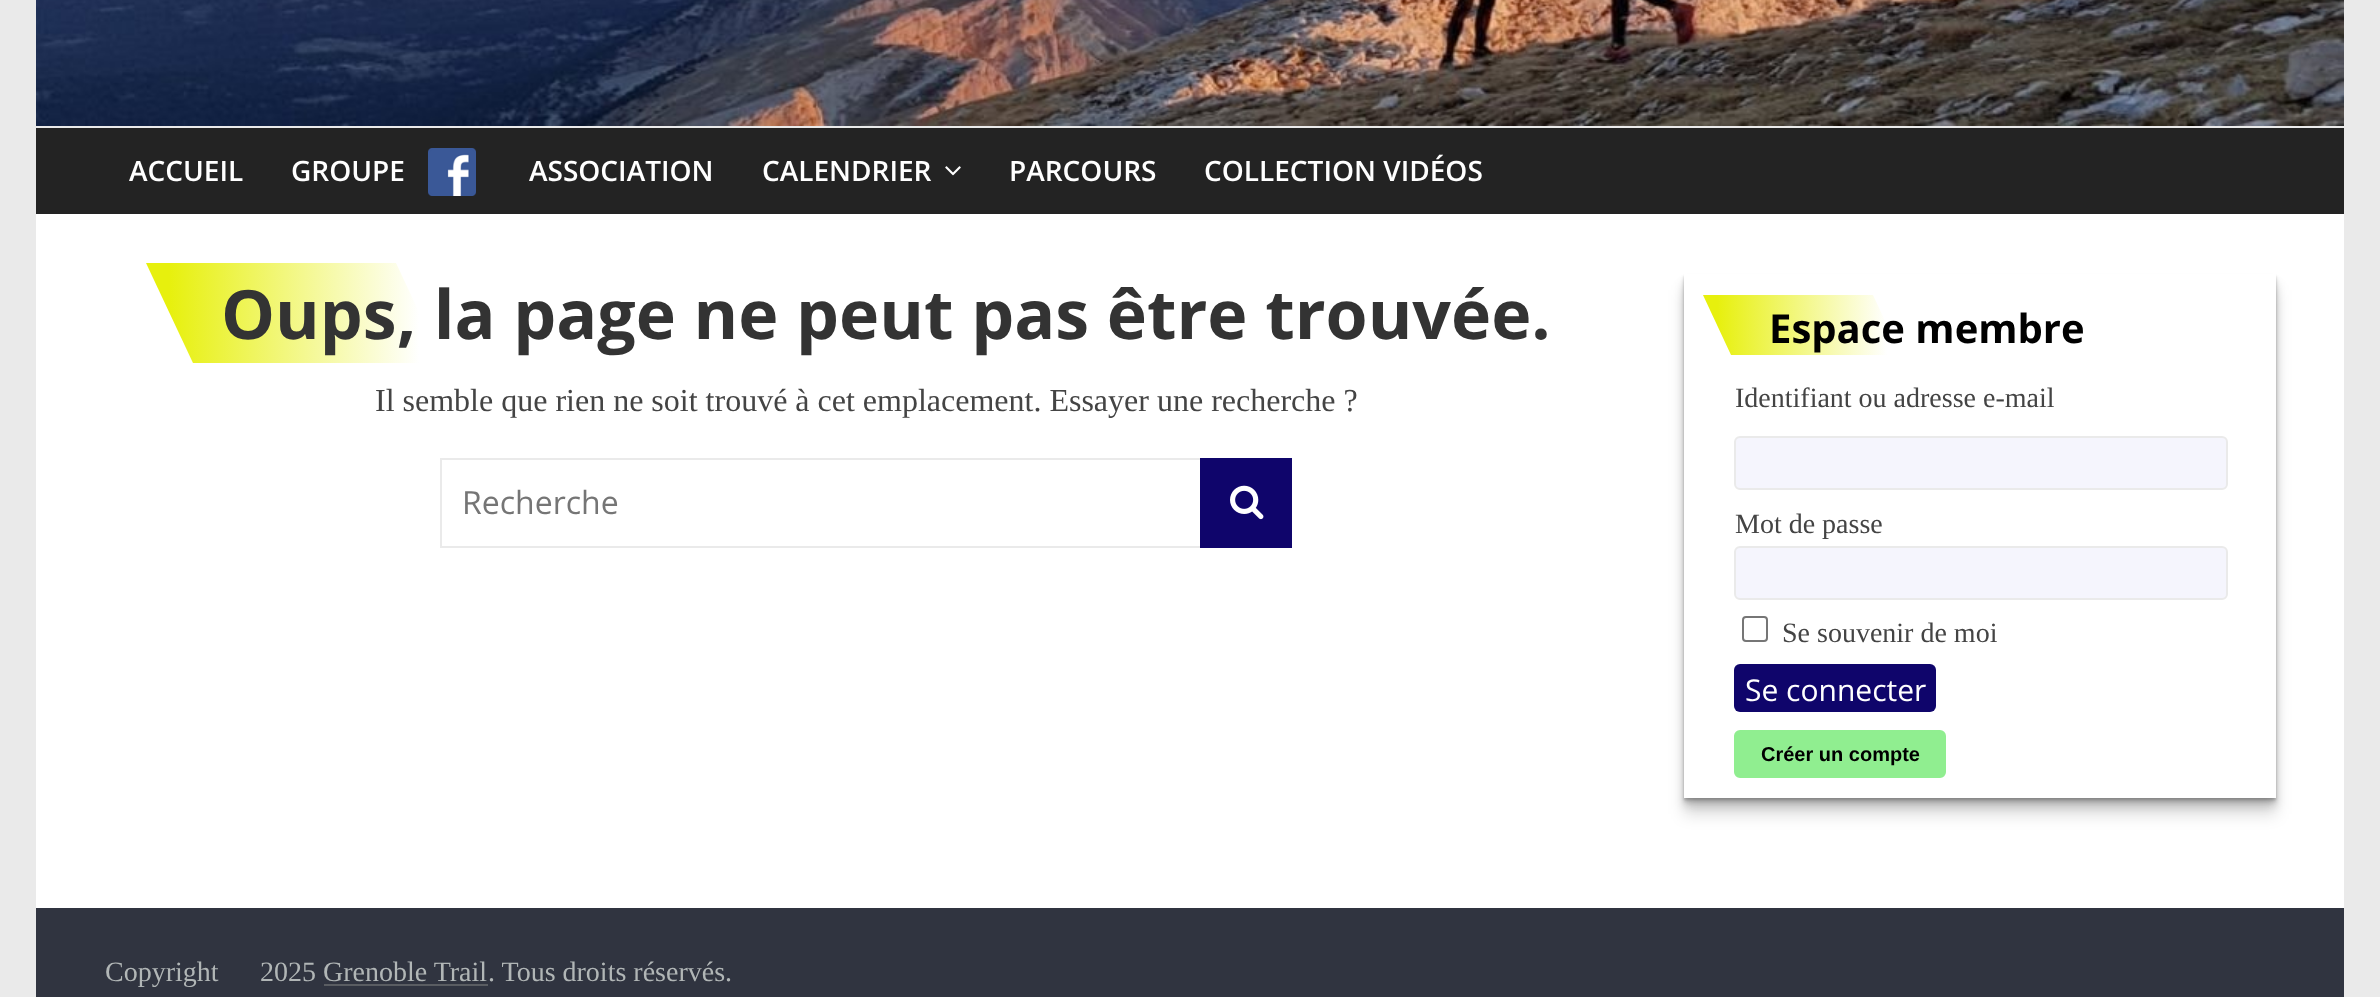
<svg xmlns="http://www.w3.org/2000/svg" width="2380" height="997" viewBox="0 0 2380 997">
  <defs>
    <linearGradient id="g1" gradientUnits="userSpaceOnUse" x1="169" y1="313" x2="419" y2="313"><stop offset="0" stop-color="#e7f00d"/><stop offset="1" stop-color="#fff"/></linearGradient>
    <clipPath id="clip1"><path d="M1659 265H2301V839H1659ZM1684 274H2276V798H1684Z" clip-rule="evenodd"/></clipPath>
    <clipPath id="clip2"><path d="M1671 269H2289V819H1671ZM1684 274H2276V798H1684Z" clip-rule="evenodd"/></clipPath>
    <clipPath id="clip3"><path d="M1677 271H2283V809H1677ZM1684 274H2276V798H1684Z" clip-rule="evenodd"/></clipPath>
    <clipPath id="clip4"><path d="M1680 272H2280V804H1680ZM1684 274H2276V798H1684Z" clip-rule="evenodd"/></clipPath>
    <linearGradient id="g2" gradientUnits="userSpaceOnUse" x1="1717" y1="325" x2="1887" y2="325"><stop offset="0" stop-color="#e7f00d"/><stop offset="1" stop-color="#fff"/></linearGradient>
  </defs>
  <rect width="100%" height="100%" fill="#eaeaea"/>
  <image x="36" y="0" width="2308" height="126" href="img/1.png"/>
  <path d="M36 128h2308v86H36z" fill="#232323"/>
  <image x="428" y="148" width="48" height="48" href="img/2.png"/>
  <image x="945" y="166" width="16" height="10" href="img/3.png"/>
  <path d="M36 214h2308v694H36z" fill="#fff"/>
  <path d="M146 263H396L443 363H193Z" fill="url(#g1)"/>
  <path d="M441 459h760v88H441z" fill="none" stroke="#eaeaea" stroke-width="2"/>
  <path d="M1200 458h92v90H1200z" fill="#0f056b"/>
  <image x="1230" y="485" width="34" height="35" href="img/4.png"/>
  <g clip-path="url(#clip1)">
    <path d="M1684 290h592v524H1684z" fill="#00000026" filter="blur(8px)"/>
  </g>
  <g clip-path="url(#clip2)">
    <path d="M1684 282h592v524H1684z" fill="#00000026" filter="blur(4px)"/>
  </g>
  <g clip-path="url(#clip3)">
    <path d="M1684 278h592v524H1684z" fill="#00000026" filter="blur(2px)"/>
  </g>
  <g clip-path="url(#clip4)">
    <path d="M1684 276h592v524H1684z" fill="#00000026" filter="blur(1px)"/>
  </g>
  <path d="M1703 295H1873L1901 355H1731Z" fill="url(#g2)"/>
  <rect x="1735" y="437" width="492" height="52" rx="5" fill="#f5f5fd" stroke="#eaeaea" stroke-width="2"/>
  <rect x="1735" y="547" width="492" height="52" rx="5" fill="#f5f5fd" stroke="#eaeaea" stroke-width="2"/>
  <rect x="1743" y="617" width="24" height="24" rx="3" fill="none" stroke="#767676" stroke-width="2"/>
  <rect x="1734" y="664" width="202" height="48" rx="6" fill="#0f056b"/>
  <rect x="1735" y="731" width="210" height="46" rx="5" fill="#90ee90" stroke="#90ee90" stroke-width="2"/>
  <path d="M36 908h2308v89H36z" fill="#303440"/>
  <path d="M324 984h164v2H324z" fill="#5a5d62"/>
  <g font-family="Open Sans" font-size="28" font-weight="600" fill="#fff">
    <text x="129" y="181">ACCUEIL</text>
    <text x="291" y="181">GROUPE</text>
    <text x="529" y="181">ASSOCIATION</text>
    <text x="762" y="181">CALENDRIER</text>
    <text x="1009" y="181">PARCOURS</text>
    <text x="1204" y="181">COLLECTION VIDÉOS</text>
  </g>
  <text x="221" y="339" font-family="Open Sans" font-size="68" font-weight="bold" fill="#333">Oups, la page ne peut pas être trouvée.</text>
  <text x="375" y="411" font-family="Liberation Serif" font-size="32" fill="#444">Il semble que rien ne soit trouvé à cet emplacement. Essayer une recherche ?</text>
  <text x="462" y="514" font-family="Open Sans" font-size="32" fill="#757575">Recherche</text>
  <text x="1769" y="343" font-family="Open Sans" font-size="40" font-weight="bold" fill="#000">Espace membre</text>
  <g font-family="Liberation Serif" font-size="28" fill="#444">
    <text x="1735" y="407">Identifiant ou adresse e-mail</text>
    <text x="1735" y="533">Mot de passe</text>
    <text x="1782" y="642">Se souvenir de moi</text>
  </g>
  <text x="1745" y="701" font-family="Open Sans" font-size="30" fill="#fff">Se connecter</text>
  <text x="1761" y="761" font-family="Liberation Sans" font-size="20" font-weight="bold" fill="#000">Créer un compte</text>
  <g font-family="Liberation Serif" font-size="28" fill="#b1b6b6">
    <text x="105" y="981">Copyright</text>
    <text x="260" y="981">2025 Grenoble Trail</text>
    <text x="488" y="981">. Tous droits réservés.</text>
  </g>
</svg>
